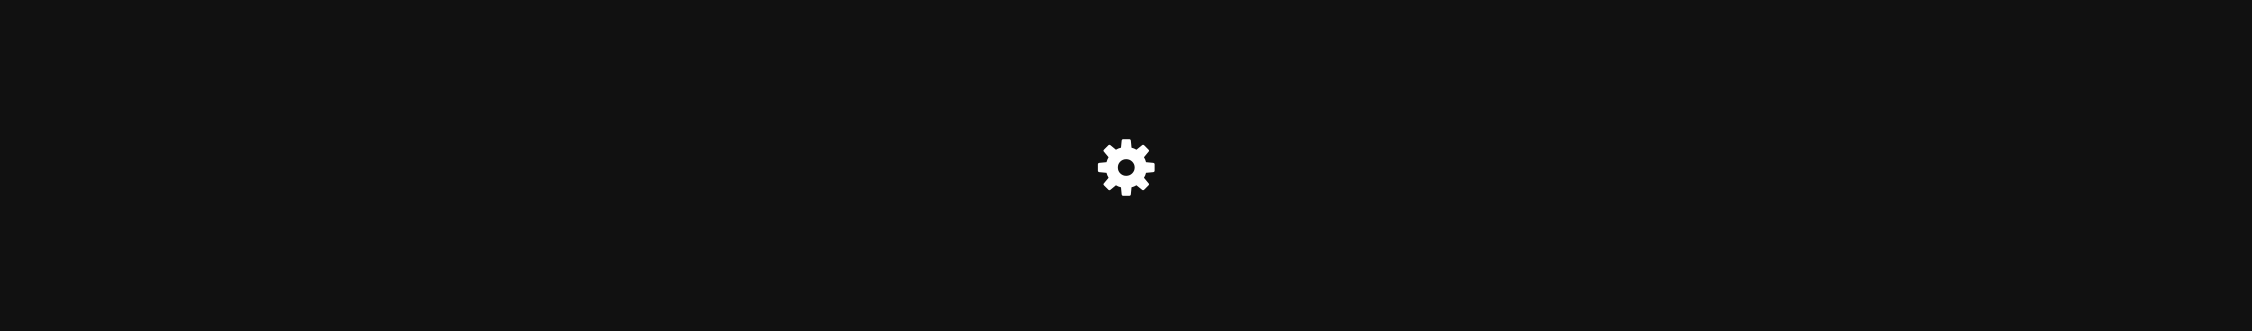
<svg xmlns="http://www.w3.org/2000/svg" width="2252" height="331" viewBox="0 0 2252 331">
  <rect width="100%" height="100%" fill="#111"/>
  <image x="1097" y="139" width="58" height="57" href="img/1.png"/>
</svg>
